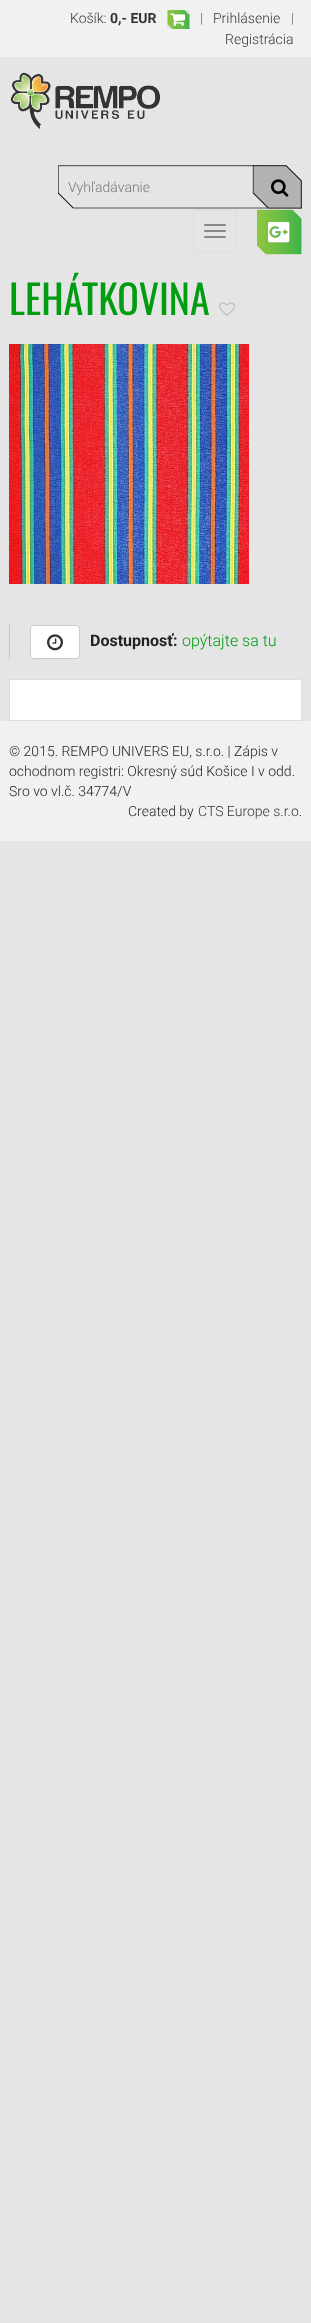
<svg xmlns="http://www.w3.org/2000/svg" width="311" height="2323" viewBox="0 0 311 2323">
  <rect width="100%" height="100%" fill="#e5e5e5"/>
  <path d="M0 0h311v57H0z" fill="#f1f1f1"/>
  <image x="167" y="10" width="23" height="19" href="img/1.png"/>
  <image x="10" y="72" width="151" height="57" href="img/2.png"/>
  <image x="58" y="165" width="244" height="44" href="img/3.png"/>
  <path d="M58 165h200v1H58z" fill="#00000012"/>
  <image x="271" y="179" width="18" height="18" href="img/4.png"/>
  <rect x="193.5" y="209.5" width="43" height="43" rx="3.5" fill="none" stroke="#ddd"/>
  <rect x="204" y="224" width="22" height="2" rx="1" fill="#888"/>
  <rect x="204" y="230" width="22" height="2" rx="1" fill="#888"/>
  <rect x="204" y="236" width="22" height="2" rx="1" fill="#888"/>
  <image x="257" y="209" width="45" height="46" href="img/5.png"/>
  <image x="219" y="302" width="16" height="14" href="img/6.png"/>
  <image x="9" y="344" width="240" height="240" href="img/7.png"/>
  <path d="M9 625h1v34H9z" fill="#c5c5c5"/>
  <rect x="30.5" y="625.5" width="49" height="33" rx="3.5" fill="#fff" stroke="#ccc"/>
  <image x="47" y="634" width="16" height="17" href="img/8.png"/>
  <path d="M9 679h293v1H9z" fill="#ddd"/>
  <path d="M10 680h291v40H10z" fill="#fff"/>
  <path d="M301 680h1v41H301z" fill="#ddd"/>
  <path d="M9 720h293v1H9z" fill="#ddd"/>
  <path d="M9 680h1v41H9z" fill="#ddd"/>
  <path d="M0 721h311v120H0z" fill="#f1f1f1"/>
  <text x="70" y="23" font-family="Roboto" font-size="14" font-weight="300" fill="#333">Košík:</text>
  <text x="110" y="23" font-family="Roboto" font-size="14" font-weight="bold" fill="#333">0,- EUR</text>
  <text x="200" y="23" font-family="Roboto" font-size="14" font-weight="300" fill="#666">|</text>
  <text x="213" y="23" font-family="Roboto" font-size="14" font-weight="300" fill="#333">Prihlásenie</text>
  <text x="291" y="23" font-family="Roboto" font-size="14" font-weight="300" fill="#666">|</text>
  <text x="225" y="44" font-family="Roboto" font-size="14" font-weight="300" fill="#333">Registrácia</text>
  <text x="68" y="192" font-family="Roboto" font-size="14" font-weight="300" fill="#777">Vyhľadávanie</text>
  <text x="9" y="315" font-family="Oswald" font-size="40" fill="#009c12">LEHÁTKOVINA</text>
  <text x="90" y="646" font-family="Roboto" font-size="16" font-weight="bold" fill="#222">Dostupnosť:</text>
  <text x="182" y="646" font-family="Roboto" font-size="16" font-weight="300" fill="#009c12">opýtajte sa tu</text>
  <g font-family="Roboto" font-size="14" font-weight="300" fill="#222">
    <text x="9" y="756">© 2015. REMPO UNIVERS EU, s.r.o. | Zápis v</text>
    <text x="9" y="776">ochodnom registri: Okresný súd Košice I v odd.</text>
    <text x="9" y="796">Sro vo vl.č. 34774/V</text>
    <text x="128" y="816">Created by</text>
  </g>
  <text x="198" y="816" font-family="Roboto" font-size="14" font-weight="300" fill="#333">CTS Europe s.r.o.</text>
</svg>
